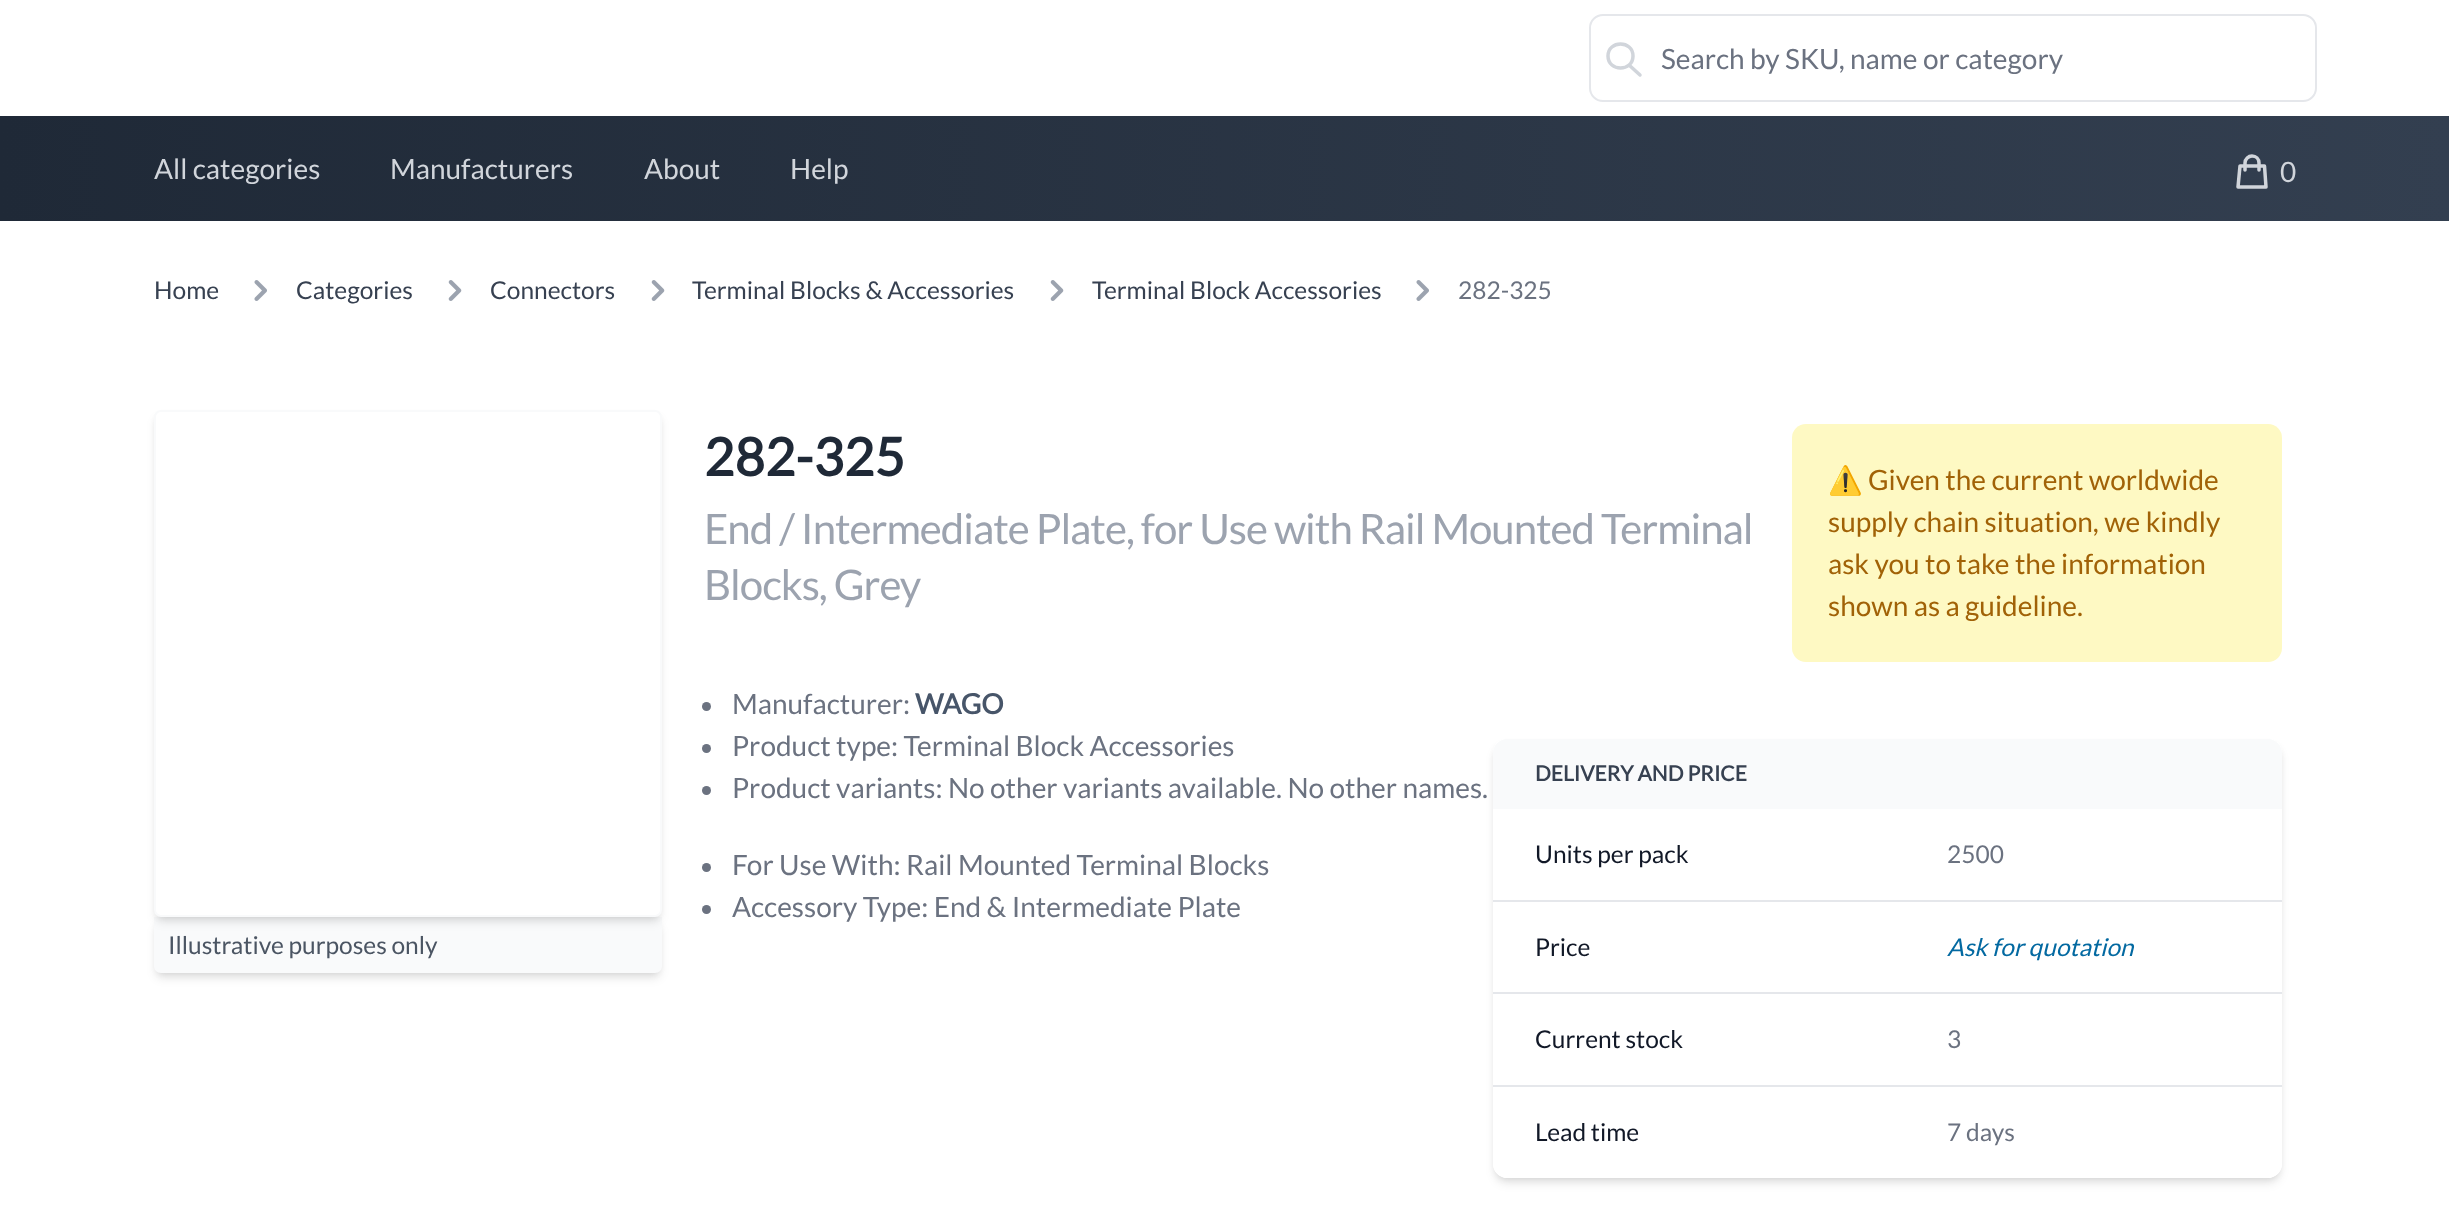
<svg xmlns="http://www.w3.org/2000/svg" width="2449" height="1222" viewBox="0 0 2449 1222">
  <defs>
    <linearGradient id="g1" gradientUnits="userSpaceOnUse" x1="0" y1="168" x2="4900" y2="168"><stop offset="0" stop-color="#1f2937"/><stop offset="1" stop-color="#475569"/></linearGradient>
    <clipPath id="clip1"><path d="M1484 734H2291V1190H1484ZM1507 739H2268C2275.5 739 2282 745.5 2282 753V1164C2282 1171.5 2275.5 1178 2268 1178H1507C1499.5 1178 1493 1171.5 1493 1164V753C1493 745.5 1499.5 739 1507 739Z" clip-rule="evenodd"/></clipPath>
    <clipPath id="clip2"><path d="M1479 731H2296V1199H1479ZM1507 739H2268C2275.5 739 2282 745.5 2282 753V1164C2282 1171.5 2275.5 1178 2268 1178H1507C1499.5 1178 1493 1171.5 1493 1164V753C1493 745.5 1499.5 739 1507 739Z" clip-rule="evenodd"/></clipPath>
  </defs>
  <rect width="100%" height="100%" fill="#fff"/>
  <rect x="1590" y="15" width="726" height="86" rx="13" fill="none" stroke="#e5e7eb" stroke-width="2"/>
  <path d="M1640 75L1629 65M1633 56C1633 72 1608 72 1608 56C1608 40 1633 40 1633 56Z" fill="none" stroke="#d1d5db" stroke-width="3.5" stroke-linecap="round" stroke-linejoin="round"/>
  <path d="M0 116h2449v105H0z" fill="url(#g1)"/>
  <path d="M2259 170V163C2259 159 2256 156 2252 156C2248.5 156 2245 159 2245 163V170M2240 166H2264.5L2266 187H2238Z" fill="none" stroke="#d1d5db" stroke-width="3.5" stroke-linecap="round" stroke-linejoin="round"/>
  <image x="254" y="280" width="13" height="21" href="img/1.png"/>
  <image x="448" y="280" width="14" height="21" href="img/2.png"/>
  <image x="651" y="280" width="14" height="21" href="img/2.png"/>
  <image x="1050" y="280" width="14" height="21" href="img/2.png"/>
  <image x="1416" y="280" width="13" height="21" href="img/1.png"/>
  <rect x="158" y="924" width="500" height="49" rx="4" fill="#0000001a" filter="blur(3.5px)"/>
  <rect x="156" y="926" width="504" height="52" rx="5" fill="#0000001a" filter="blur(5px)"/>
  <path d="M154 917H662V966C662 970 659 973 655 973H161C157 973 154 970 154 966Z" fill="#f9fafb"/>
  <rect x="158" y="417" width="500" height="500" rx="4" fill="#0000001a" filter="blur(3.5px)"/>
  <rect x="156" y="418" width="504" height="504" rx="5" fill="#0000001a" filter="blur(5px)"/>
  <rect x="155" y="411" width="506" height="505" rx="6" fill="#fff" stroke="#f9fafb" stroke-width="2"/>
  <rect x="1792" y="424" width="490" height="238" rx="14" fill="#fef9c3"/>
  <circle cx="706.5" cy="706.5" r="4.5" fill="#6b7280"/>
  <circle cx="706.5" cy="748.5" r="4.5" fill="#6b7280"/>
  <circle cx="706.5" cy="790.5" r="4.5" fill="#6b7280"/>
  <circle cx="706.5" cy="867.5" r="4.5" fill="#6b7280"/>
  <circle cx="706.5" cy="909.5" r="4.5" fill="#6b7280"/>
  <g clip-path="url(#clip1)">
    <rect x="1496" y="746" width="783" height="432" rx="11" fill="#0000001a" filter="blur(3.5px)"/>
  </g>
  <g clip-path="url(#clip2)">
    <rect x="1495" y="747" width="785" height="436" rx="12" fill="#0000001a" filter="blur(5px)"/>
  </g>
  <path d="M1507 739H2268C2275.5 739 2282 745.5 2282 753V809H1493V753C1493 745.5 1499.5 739 1507 739Z" fill="#f9fafb"/>
  <path d="M1493 900h789v2H1493z" fill="#e5e7eb"/>
  <path d="M1493 992h789v2H1493z" fill="#e5e7eb"/>
  <path d="M1493 1085h789v2H1493z" fill="#e5e7eb"/>
  <path d="M1493 1087H2282V1164C2282 1171.5 2275.5 1178 2268 1178H1507C1499.5 1178 1493 1171.5 1493 1164Z" fill="#fff"/>
  <text x="1661" y="69" font-family="Lato" font-size="28" fill="#6b7280">Search by SKU, name or category</text>
  <g font-family="Lato" font-size="28" fill="#d1d5db">
    <text x="154" y="179">All categories</text>
    <text x="390" y="179">Manufacturers</text>
    <text x="644" y="179">About</text>
    <text x="790" y="179">Help</text>
    <text x="2280" y="182">0</text>
  </g>
  <g font-family="Lato" font-size="24.5" fill="#374151">
    <text x="154" y="299">Home</text>
    <text x="296" y="299">Categories</text>
    <text x="490" y="299">Connectors</text>
    <text x="692" y="299">Terminal Blocks &amp; Accessories</text>
    <text x="1092" y="299">Terminal Block Accessories</text>
  </g>
  <text x="1458" y="299" font-family="Lato" font-size="24.5" fill="#6b7280">282-325</text>
  <text x="168" y="954" font-family="Lato" font-size="24.5" fill="#4b5563">Illustrative purposes only</text>
  <text x="704" y="476" font-family="Lato" font-size="52.5" font-weight="bold" fill="#1f2937">282-325</text>
  <g font-family="Lato" font-size="42" letter-spacing="-1.05" fill="#9ca3af">
    <text x="704" y="544">End / Intermediate Plate, for Use with Rail Mounted Terminal</text>
    <text x="704" y="600">Blocks, Grey</text>
  </g>
  <text x="1828" y="490" font-family="Noto Color Emoji" font-size="28" fill="#a16207">⚠️</text>
  <g font-family="Lato" font-size="28" fill="#a16207">
    <text x="1868" y="490">Given the current worldwide</text>
    <text x="1828" y="532">supply chain situation, we kindly</text>
    <text x="1828" y="574">ask you to take the information</text>
    <text x="1828" y="616">shown as a guideline.</text>
  </g>
  <text x="732" y="714" font-family="Lato" font-size="28" fill="#6b7280">Manufacturer:</text>
  <text x="915" y="714" font-family="Lato" font-size="28" font-weight="bold" fill="#475569">WAGO</text>
  <g font-family="Lato" font-size="28" fill="#6b7280">
    <text x="732" y="756">Product type: Terminal Block Accessories</text>
    <text x="732" y="798">Product variants: No other variants available. No other names.</text>
    <text x="732" y="875">For Use With: Rail Mounted Terminal Blocks</text>
    <text x="732" y="917">Accessory Type: End &amp; Intermediate Plate</text>
  </g>
  <text x="1535" y="781" font-family="Lato" font-size="21" font-weight="bold" fill="#374151">DELIVERY AND PRICE</text>
  <text x="1535" y="863" font-family="Lato" font-size="24.5" fill="#111827">Units per pack</text>
  <text x="1947" y="863" font-family="Lato" font-size="24.5" fill="#6b7280">2500</text>
  <text x="1535" y="956" font-family="Lato" font-size="24.5" fill="#111827">Price</text>
  <text x="1947" y="956" font-family="Lato" font-size="24.5" font-style="italic" fill="#0369a1">Ask for quotation</text>
  <text x="1535" y="1048" font-family="Lato" font-size="24.5" fill="#111827">Current stock</text>
  <text x="1947" y="1048" font-family="Lato" font-size="24.5" fill="#6b7280">3</text>
  <text x="1535" y="1141" font-family="Lato" font-size="24.5" fill="#111827">Lead time</text>
  <text x="1947" y="1141" font-family="Lato" font-size="24.5" fill="#6b7280">7 days</text>
</svg>
